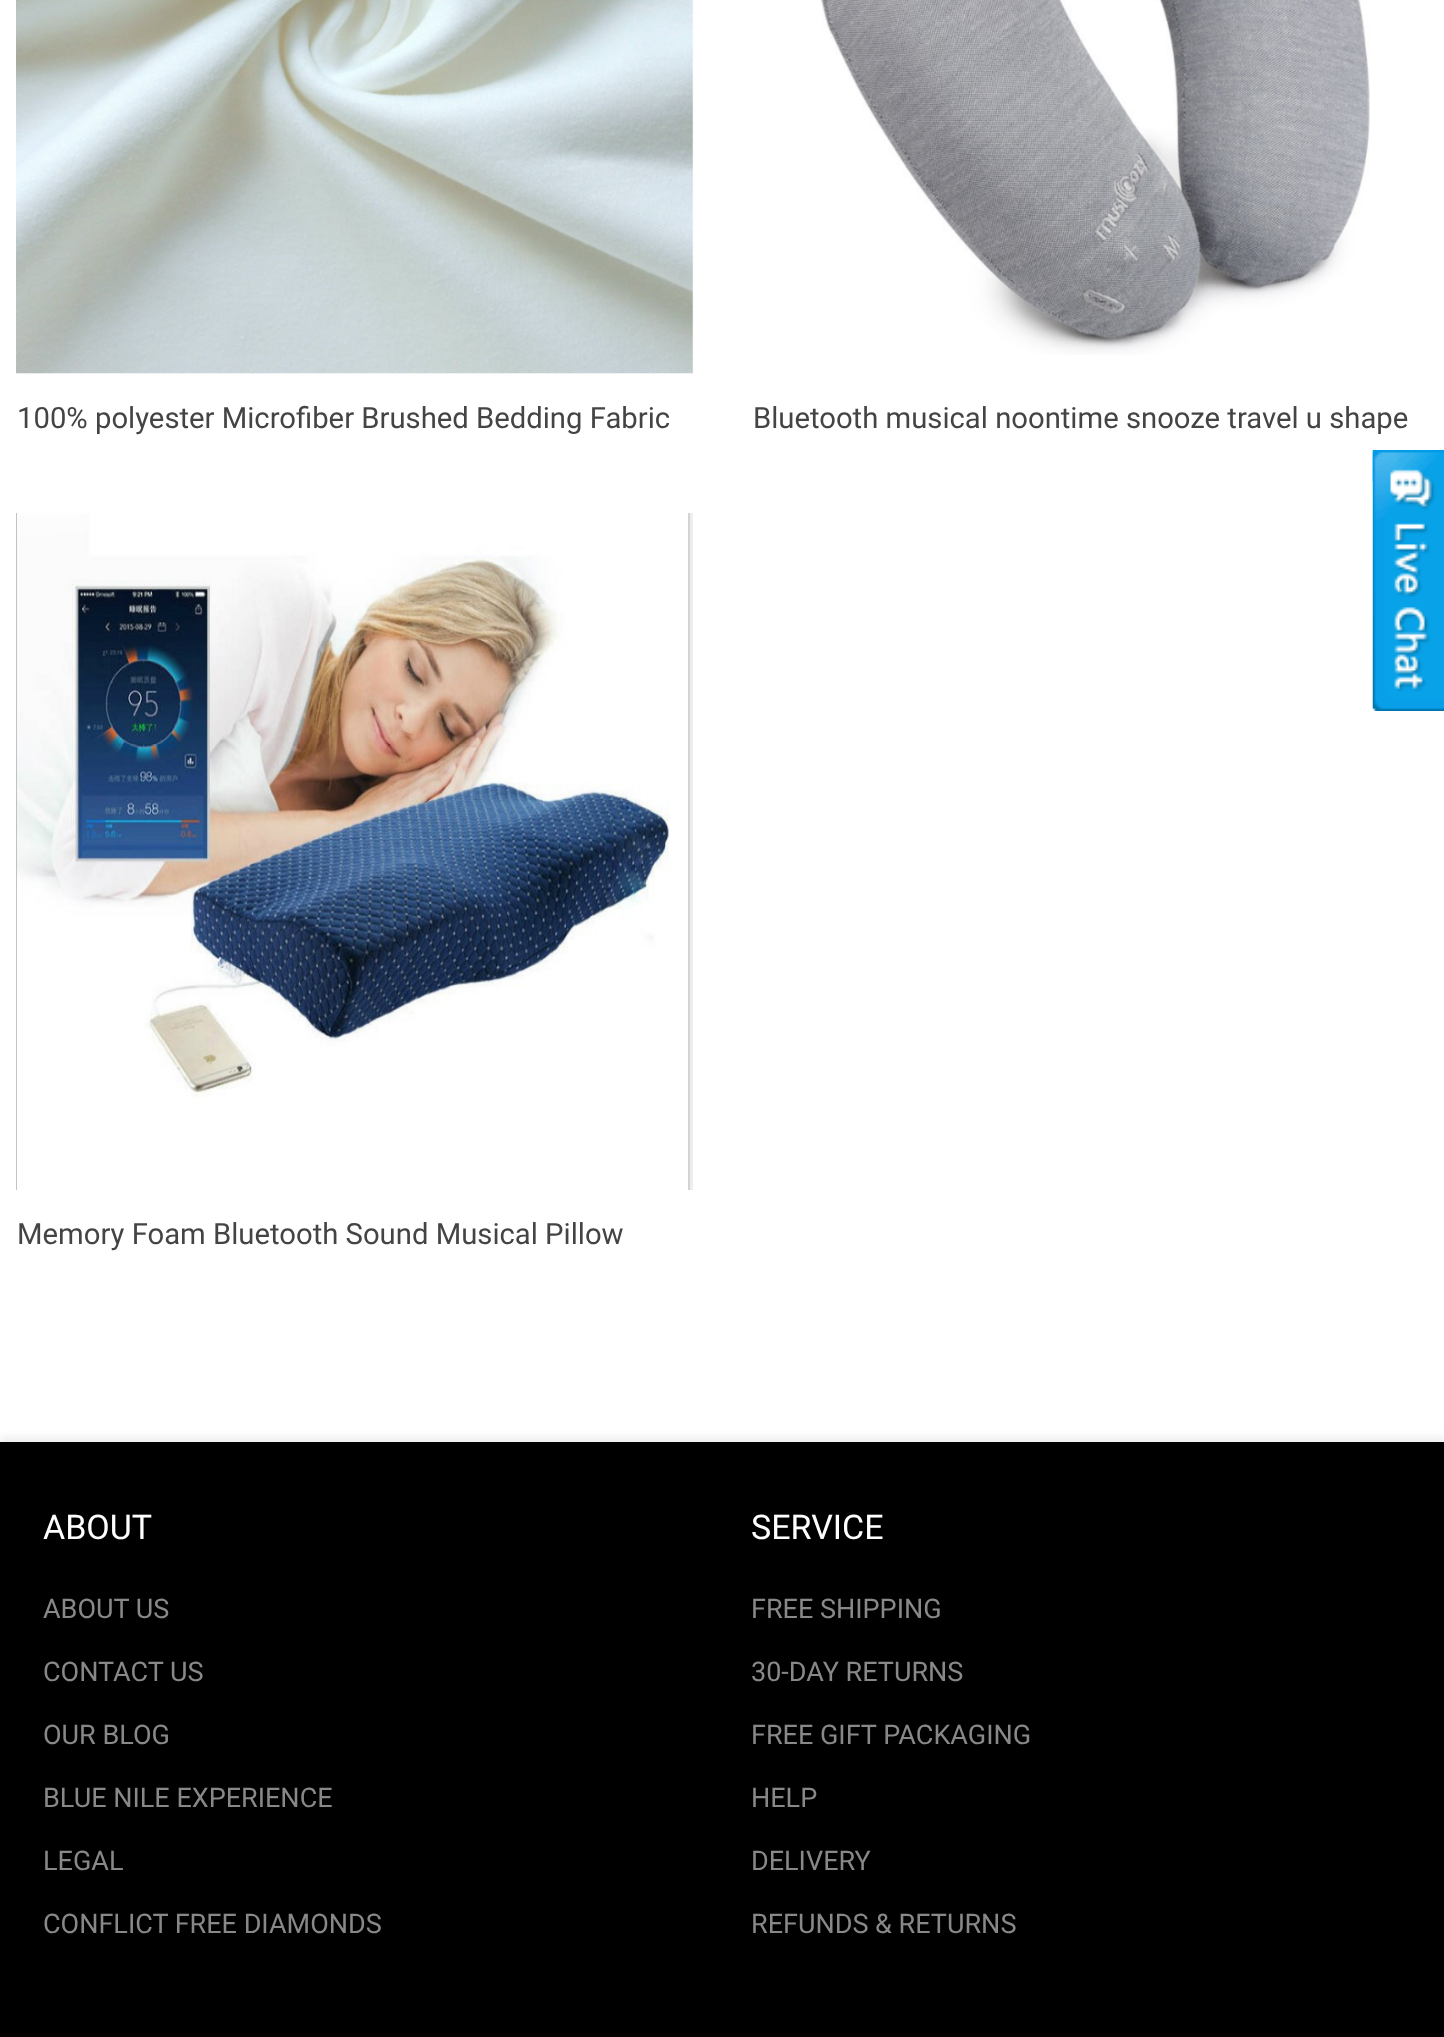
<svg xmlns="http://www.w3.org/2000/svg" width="1444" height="2037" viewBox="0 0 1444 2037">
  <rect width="100%" height="100%" fill="#fff"/>
  <image x="16" y="0" width="678" height="374" href="img/1.png"/>
  <image x="820" y="0" width="550" height="355" href="img/2.png"/>
  <image x="16" y="513" width="677" height="677" href="img/3.png"/>
  <image x="1372" y="450" width="4" height="32" href="img/4.png"/>
  <image x="1372" y="450" width="72" height="261" href="img/5.png"/>
  <path d="M0 1436h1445v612H0z" fill="#0000000f" filter="blur(3.5px)"/>
  <path d="M0 1442h1444v595H0z" fill="#000"/>
  <g font-family="Roboto" font-size="29.25" fill="#444">
    <text x="17" y="428">100% polyester Microfiber Brushed Bedding Fabric</text>
    <text x="753" y="428">Bluetooth musical noontime snooze travel u shape</text>
    <text x="17" y="1244">Memory Foam Bluetooth Sound Musical Pillow</text>
  </g>
  <text x="43" y="1539" font-family="Roboto" font-size="34" fill="#fff">ABOUT</text>
  <g font-family="Roboto" font-size="27" fill="#888">
    <text x="43" y="1618">ABOUT US</text>
    <text x="43" y="1681">CONTACT US</text>
    <text x="43" y="1744">OUR BLOG</text>
    <text x="43" y="1807">BLUE NILE EXPERIENCE</text>
    <text x="43" y="1870">LEGAL</text>
    <text x="43" y="1933">CONFLICT FREE DIAMONDS</text>
  </g>
  <text x="751" y="1539" font-family="Roboto" font-size="34" fill="#fff">SERVICE</text>
  <g font-family="Roboto" font-size="27" fill="#888">
    <text x="751" y="1618">FREE SHIPPING</text>
    <text x="751" y="1681">30-DAY RETURNS</text>
    <text x="751" y="1744">FREE GIFT PACKAGING</text>
    <text x="751" y="1807">HELP</text>
    <text x="751" y="1870">DELIVERY</text>
    <text x="751" y="1933">REFUNDS &amp; RETURNS</text>
  </g>
</svg>
